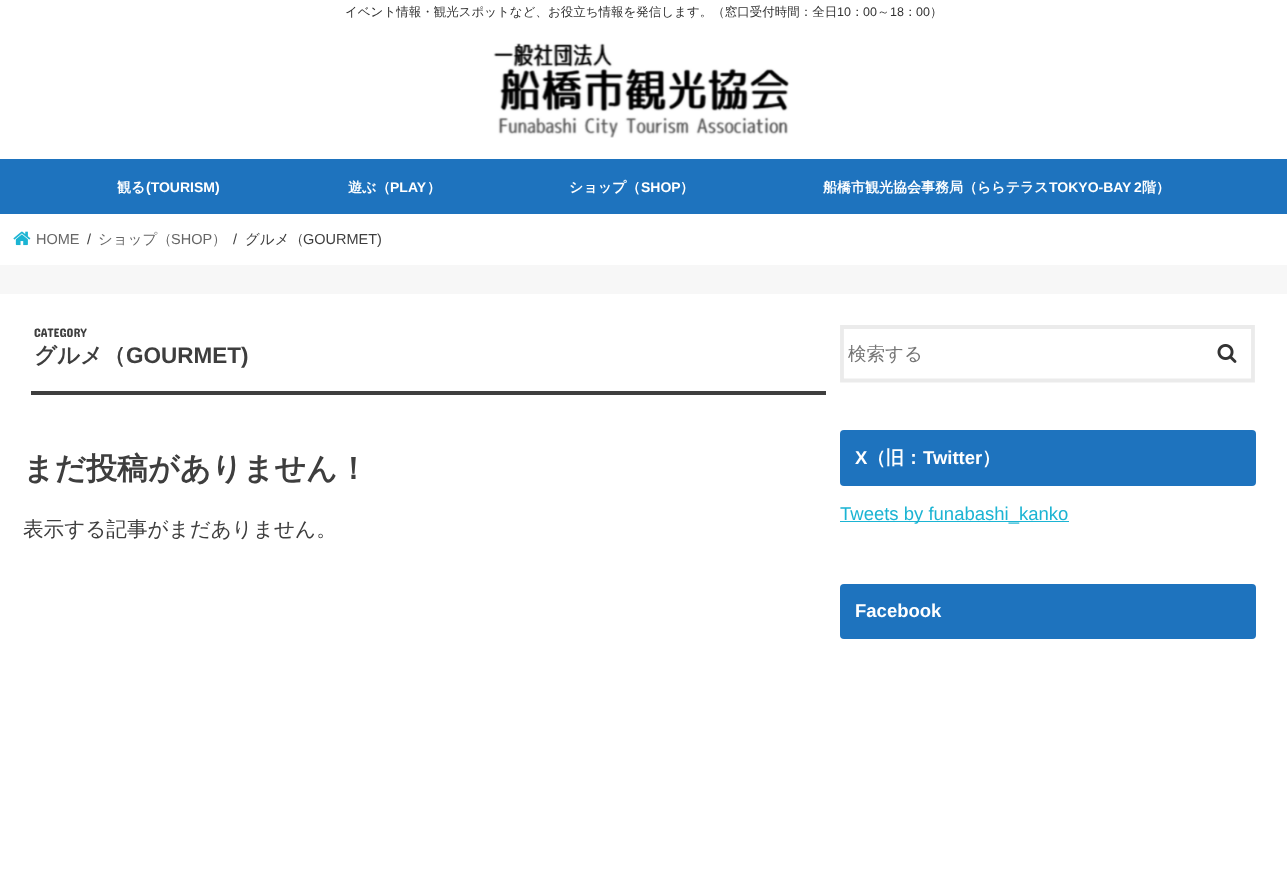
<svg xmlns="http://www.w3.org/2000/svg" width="1287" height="880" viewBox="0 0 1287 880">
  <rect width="100%" height="100%" fill="#f7f7f7"/>
  <path d="M0 0h1287v159H0z" fill="#fff"/>
  <image x="493" y="43" width="297" height="95" href="img/1.png"/>
  <path d="M0 214h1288v51H0z" fill="#ddd" filter="blur(0.5px)"/>
  <path d="M0 159h1287v55H0z" fill="#1e73be"/>
  <path d="M0 214h1287v51H0z" fill="#fff"/>
  <image x="13" y="231" width="18" height="15" href="img/2.png"/>
  <path d="M0 294h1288v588H0z" fill="#ddd" filter="blur(0.5px)"/>
  <path d="M0 294h1287v586H0z" fill="#fff"/>
  <path d="M31 391h795v4H31z" fill="#3e3e3e"/>
  <path d="M842 327H1253V380.5H842Z" fill="none" stroke="#ebebeb" stroke-width="3.8"/>
  <image x="1217" y="344" width="20" height="19" href="img/3.png"/>
  <rect x="840" y="430" width="416" height="56" rx="4" fill="#1e73be"/>
  <path d="M840 521h229v1H840z" fill="#1bb4d3"/>
  <rect x="840" y="584" width="416" height="55" rx="4" fill="#1e73be"/>
  <text x="345" y="16" font-family="WenQuanYi Zen Hei" font-size="12.5" font-weight="500" fill="#333">イベント情報・観光スポットなど、お役立ち情報を発信します。（窓口受付時間：全日</text>
  <text x="837" y="16" font-family="Liberation Sans" font-size="12.5" fill="#333">10</text>
  <text x="851" y="16" font-family="WenQuanYi Zen Hei" font-size="12.5" font-weight="500" fill="#333">：</text>
  <text x="863" y="16" font-family="Liberation Sans" font-size="12.5" fill="#333">00</text>
  <text x="877" y="16" font-family="WenQuanYi Zen Hei" font-size="12.5" font-weight="500" fill="#333">～</text>
  <text x="890" y="16" font-family="Liberation Sans" font-size="12.5" fill="#333">18</text>
  <text x="904" y="16" font-family="WenQuanYi Zen Hei" font-size="12.5" font-weight="500" fill="#333">：</text>
  <text x="916" y="16" font-family="Liberation Sans" font-size="12.5" fill="#333">00</text>
  <text x="930" y="16" font-family="WenQuanYi Zen Hei" font-size="12.5" font-weight="500" fill="#333">）</text>
  <text x="117" y="192" font-family="WenQuanYi Zen Hei" font-size="14" font-weight="bold" fill="#fff">観る</text>
  <text x="146" y="192" font-family="Liberation Sans" font-size="14" font-weight="bold" fill="#fff">(TOURISM)</text>
  <text x="348" y="192" font-family="WenQuanYi Zen Hei" font-size="14" font-weight="bold" fill="#fff">遊ぶ（</text>
  <text x="390" y="192" font-family="Liberation Sans" font-size="14" font-weight="bold" fill="#fff">PLAY</text>
  <g font-family="WenQuanYi Zen Hei" font-size="14" font-weight="bold" fill="#fff">
    <text x="427" y="192">）</text>
    <text x="569" y="192">ショップ（</text>
  </g>
  <text x="641" y="192" font-family="Liberation Sans" font-size="14" font-weight="bold" fill="#fff">SHOP</text>
  <g font-family="WenQuanYi Zen Hei" font-size="14" font-weight="bold" fill="#fff">
    <text x="680" y="192">）</text>
    <text x="823" y="192">船橋市観光協会事務局（ららテラス</text>
  </g>
  <text x="1049" y="192" word-spacing="-1" font-family="Liberation Sans" font-size="14" font-weight="bold" fill="#fff">TOKYO-BAY 2</text>
  <text x="1142" y="192" font-family="WenQuanYi Zen Hei" font-size="14" font-weight="bold" fill="#fff">階）</text>
  <text x="36" y="244" font-family="Liberation Sans" font-size="14.5" fill="#666">HOME</text>
  <text x="87" y="244" font-family="Liberation Sans" font-size="14.5" fill="#3e3e3e">/</text>
  <text x="98" y="244" font-family="WenQuanYi Zen Hei" font-size="14.5" font-weight="500" fill="#666">ショップ（</text>
  <text x="171" y="244" font-family="Liberation Sans" font-size="14.5" fill="#666">SHOP</text>
  <text x="212" y="244" font-family="WenQuanYi Zen Hei" font-size="14.5" font-weight="500" fill="#666">）</text>
  <text x="233" y="244" font-family="Liberation Sans" font-size="14.5" fill="#3e3e3e">/</text>
  <text x="245" y="244" font-family="WenQuanYi Zen Hei" font-size="14.5" font-weight="500" fill="#3e3e3e">グルメ（</text>
  <text x="303" y="244" font-family="Liberation Sans" font-size="14.5" fill="#3e3e3e">GOURMET)</text>
  <text x="34" y="337" font-family="Concert One" font-size="12.5" fill="#3e3e3e">CATEGORY</text>
  <text x="34" y="363" font-family="WenQuanYi Zen Hei" font-size="22.5" font-weight="bold" fill="#3e3e3e">グルメ（</text>
  <text x="126" y="363" font-family="Liberation Sans" font-size="22.5" font-weight="bold" fill="#3e3e3e">GOURMET)</text>
  <text x="23" y="479" font-family="WenQuanYi Zen Hei" font-size="30.9" font-weight="bold" fill="#3e3e3e">まだ投稿がありません！</text>
  <text x="23" y="536" font-family="WenQuanYi Zen Hei" font-size="20.6" font-weight="500" fill="#3e3e3e">表示する記事がまだありません。</text>
  <text x="848" y="360" font-family="WenQuanYi Zen Hei" font-size="18.5" font-weight="500" fill="#757575">検索する</text>
  <text x="855" y="464" font-family="Liberation Sans" font-size="18.5" font-weight="bold" fill="#fff">X</text>
  <text x="867" y="464" font-family="WenQuanYi Zen Hei" font-size="18.5" font-weight="bold" fill="#fff">（旧：</text>
  <text x="923" y="464" font-family="Liberation Sans" font-size="18.5" font-weight="bold" fill="#fff">Twitter</text>
  <text x="982" y="464" font-family="WenQuanYi Zen Hei" font-size="18.5" font-weight="bold" fill="#fff">）</text>
  <text x="840" y="520" font-family="Liberation Sans" font-size="18.5" fill="#1bb4d3">Tweets by funabashi_kanko</text>
  <text x="855" y="617" font-family="Liberation Sans" font-size="18.5" font-weight="bold" fill="#fff">Facebook</text>
</svg>
